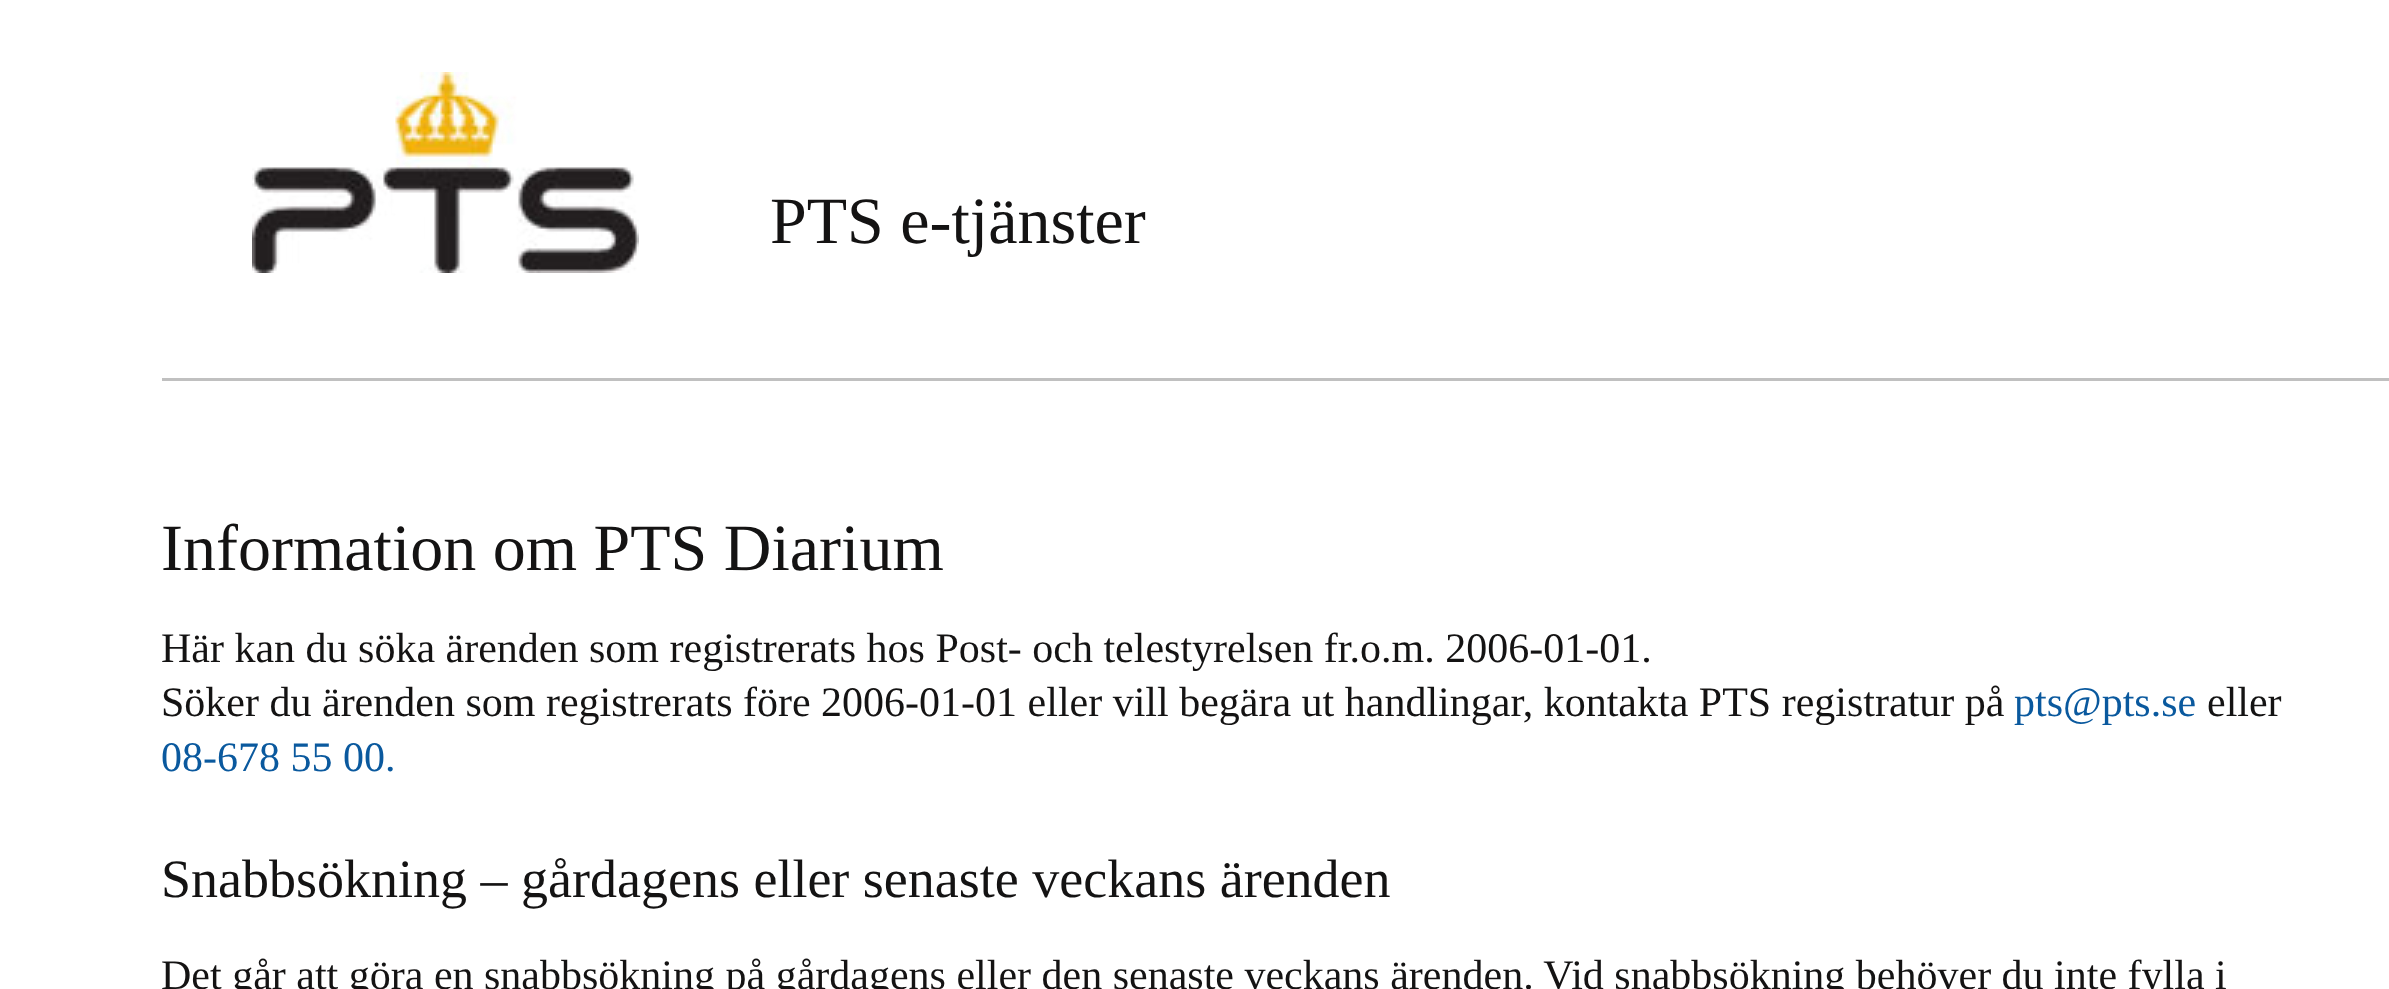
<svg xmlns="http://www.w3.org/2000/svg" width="2389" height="989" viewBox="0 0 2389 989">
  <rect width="100%" height="100%" fill="#fff"/>
  <path d="M162 378h2227v3H162z" fill="#c0c0c0"/>
  <image x="252" y="72" width="387" height="201" href="img/1.png"/>
  <g font-family="Liberation Serif" font-size="66" fill="#141313">
    <text x="770" y="243">PTS e-tjänster</text>
    <text x="161" y="570">Information om PTS Diarium</text>
  </g>
  <g font-family="Liberation Serif" font-size="42" fill="#141313">
    <text x="161" y="662">Här kan du söka ärenden som registrerats hos Post- och telestyrelsen fr.o.m. 2006-01-01.</text>
    <text x="161" y="716">Söker du ärenden som registrerats före 2006-01-01 eller vill begära ut handlingar, kontakta PTS registratur på</text>
  </g>
  <text x="2014" y="716" font-family="Liberation Serif" font-size="42" fill="#0a599e">pts@pts.se</text>
  <text x="2207" y="716" font-family="Liberation Serif" font-size="42" fill="#141313">eller</text>
  <text x="161" y="771" font-family="Liberation Serif" font-size="42" fill="#0a599e">08-678 55 00.</text>
  <text x="161" y="897" font-family="Liberation Serif" font-size="54" fill="#141313">Snabbsökning – gårdagens eller senaste veckans ärenden</text>
  <text x="161" y="989" font-family="Liberation Serif" font-size="42" fill="#141313">Det går att göra en snabbsökning på gårdagens eller den senaste veckans ärenden. Vid snabbsökning behöver du inte fylla i</text>
</svg>
